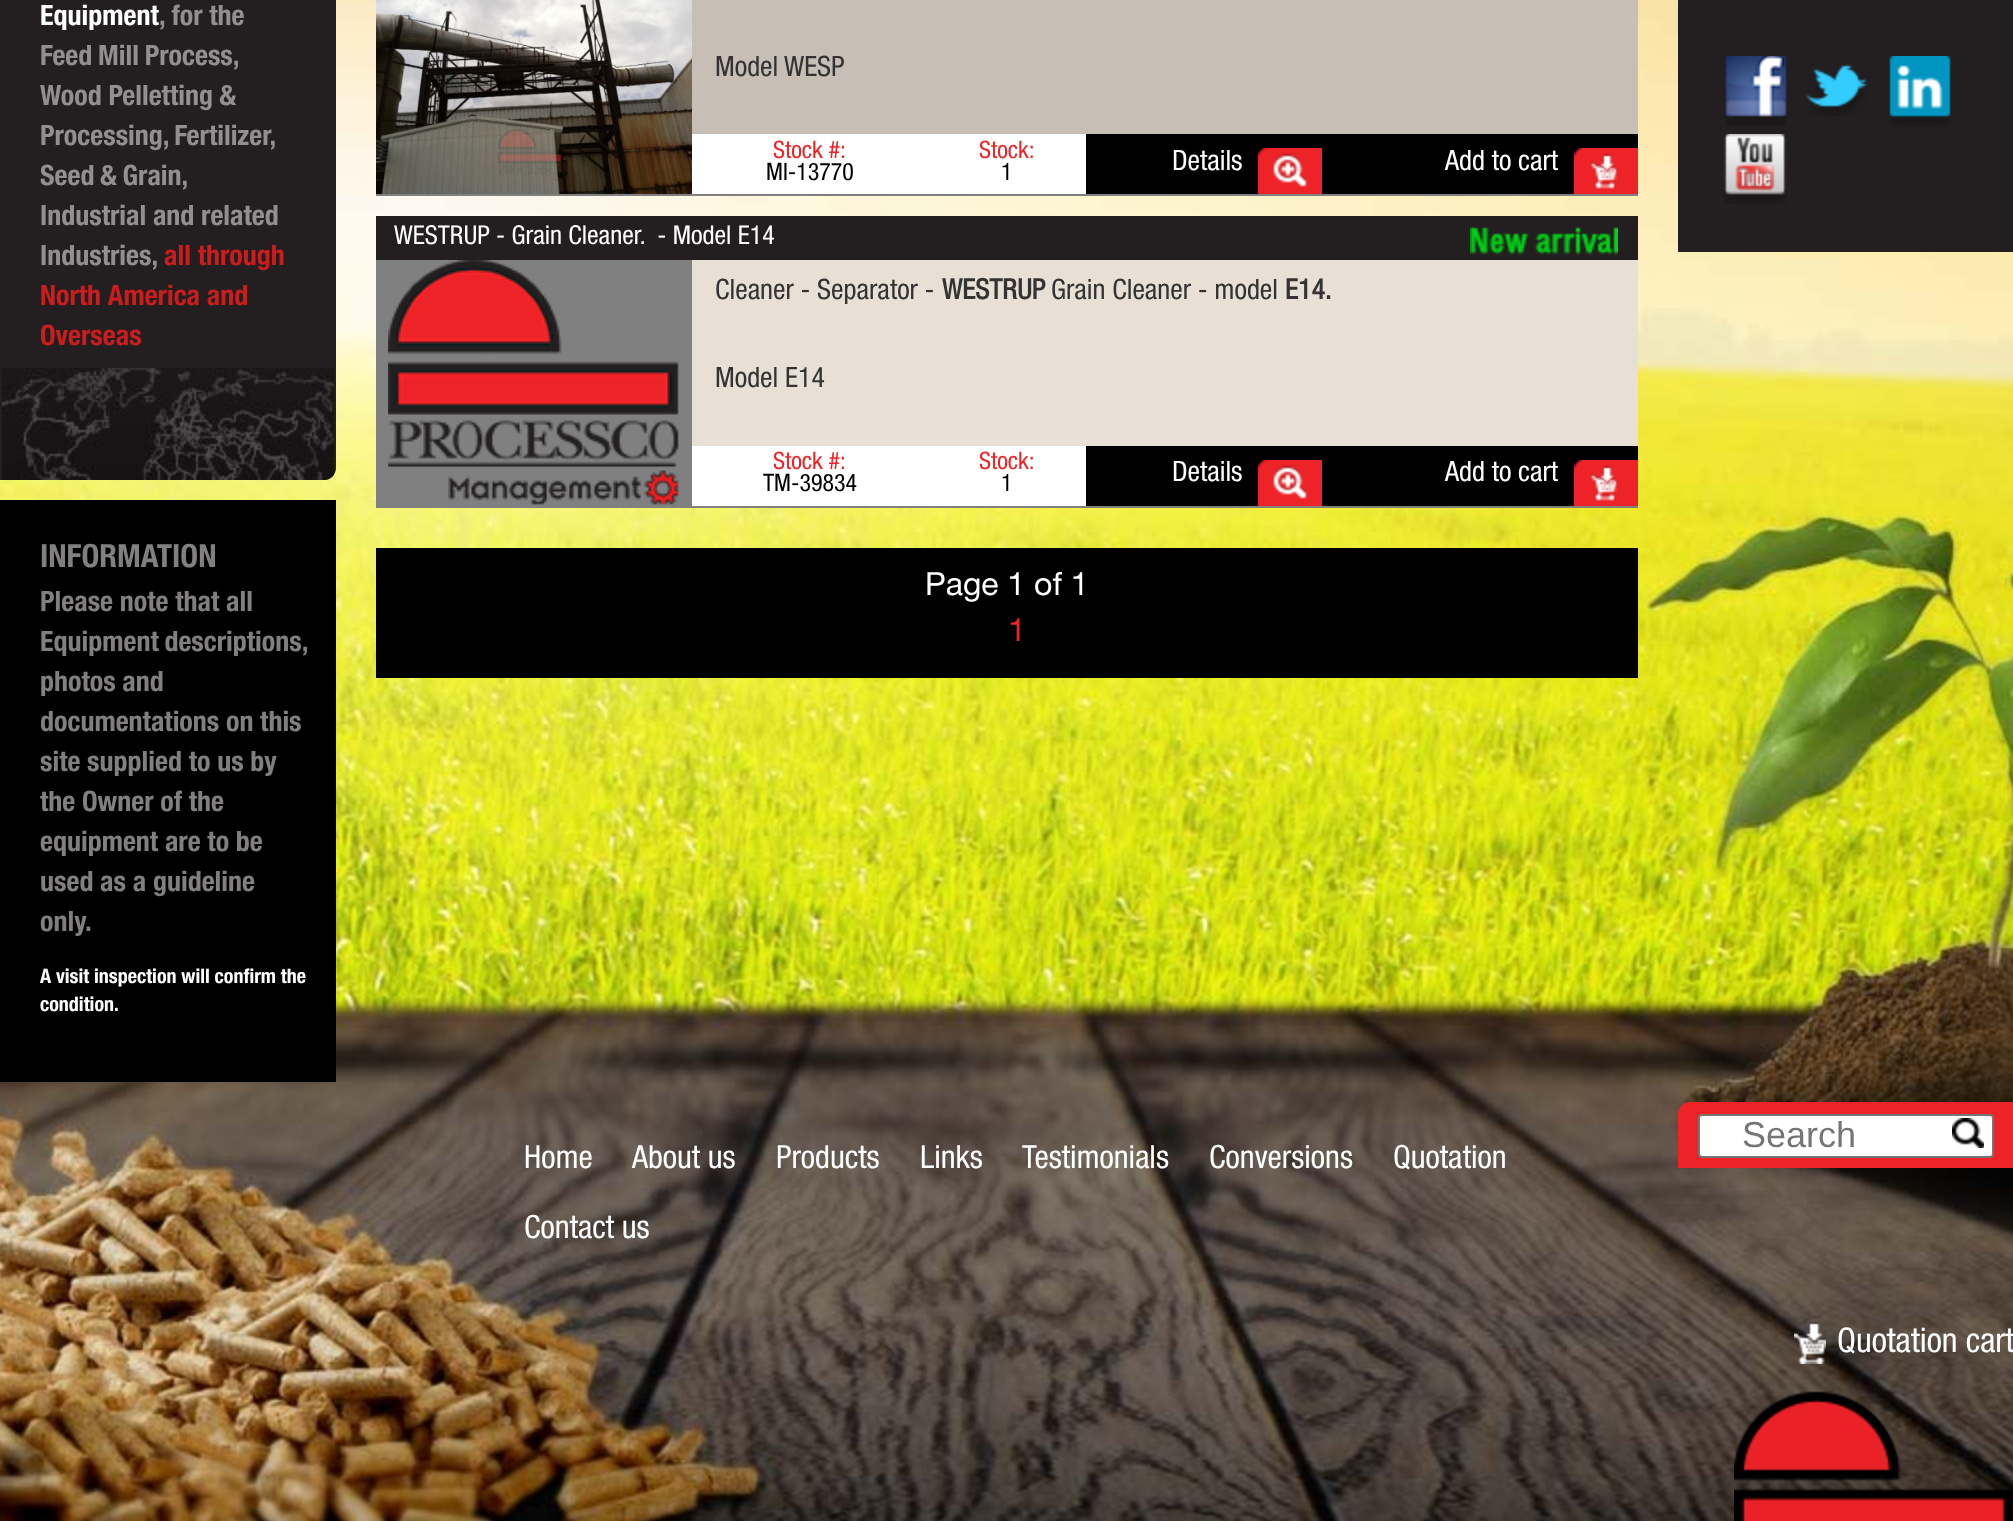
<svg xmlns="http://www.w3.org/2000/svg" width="2013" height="1521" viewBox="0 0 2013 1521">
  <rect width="100%" height="100%" fill="#fff"/>
  <image x="0" y="0" width="2013" height="1521" href="img/1.png"/>
  <path d="M0-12H324C330.5-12 336-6.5 336 0V468C336 474.5 330.5 480 324 480H0Z" fill="#231f20"/>
  <image x="2" y="368" width="332" height="112" href="img/2.png"/>
  <path d="M0 500h336v582H0z" fill="#000"/>
  <path d="M376 194h1262v2H376z" fill="#808080"/>
  <path d="M692 0h946v134H692z" fill="#c7beb5"/>
  <image x="376" y="0" width="316" height="194" href="img/3.png"/>
  <path d="M692 134h394v60H692z" fill="#fff"/>
  <path d="M1086 134h552v60H1086z" fill="#000"/>
  <image x="1258" y="148" width="64" height="46" href="img/4.png"/>
  <image x="1574" y="148" width="64" height="46" href="img/5.png"/>
  <path d="M376 506h1262v2H376z" fill="#808080"/>
  <path d="M376 216h1262v44H376z" fill="#231f20"/>
  <image x="1470" y="227" width="148" height="28" href="img/6.png"/>
  <path d="M692 260h946v186H692z" fill="#e8e0d5"/>
  <path d="M376 260h316v246H376z" fill="#808080"/>
  <image x="388" y="260" width="291" height="245" href="img/7.png"/>
  <path d="M692 446h394v60H692z" fill="#fff"/>
  <path d="M1086 446h552v60H1086z" fill="#000"/>
  <image x="1258" y="460" width="64" height="46" href="img/4.png"/>
  <image x="1574" y="460" width="64" height="46" href="img/5.png"/>
  <path d="M376 548h1262v130H376z" fill="#000"/>
  <path d="M1678 0h335v252H1678z" fill="#231f20"/>
  <image x="1725" y="56" width="62" height="70" href="img/8.png"/>
  <image x="1805" y="64" width="62" height="52" href="img/9.png"/>
  <image x="1889" y="56" width="62" height="71" href="img/10.png"/>
  <image x="1723" y="134" width="64" height="70" href="img/11.png"/>
  <path d="M1690 1102H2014V1168H1678V1114C1678 1107.5 1683.5 1102 1690 1102Z" fill="#ee2327"/>
  <rect x="1699" y="1115" width="294" height="42" rx="3" fill="#fff" stroke="#767676" stroke-width="2"/>
  <image x="1952" y="1118" width="32" height="30" href="img/12.png"/>
  <image x="1794" y="1322" width="32" height="42" href="img/13.png"/>
  <image x="1734" y="1391" width="279" height="130" href="img/14.png"/>
  <text x="40" y="25" font-family="Helvetica Neue" font-size="28" font-weight="bold" fill="#fff">Equipment</text>
  <g font-family="Helvetica Neue" font-size="28" font-weight="bold" fill="#918f90">
    <text x="159" y="25">, for the</text>
    <text x="40" y="65" word-spacing="-1">Feed Mill Process,</text>
    <text x="40" y="105">Wood Pelletting &amp;</text>
    <text x="40" y="145" word-spacing="-1">Processing, Fertilizer,</text>
    <text x="40" y="185" word-spacing="-1">Seed &amp; Grain,</text>
    <text x="40" y="225">Industrial and related</text>
    <text x="40" y="265">Industries,</text>
  </g>
  <g font-family="Helvetica Neue" font-size="28" font-weight="bold" fill="#c91d1e">
    <text x="164" y="265">all through</text>
    <text x="40" y="305">North America and</text>
    <text x="40" y="345">Overseas</text>
  </g>
  <text x="40" y="567" font-family="Helvetica Neue" font-size="32" font-weight="bold" fill="#817f80">INFORMATION</text>
  <g font-family="Helvetica Neue" font-size="28" font-weight="bold" fill="#817f80">
    <text x="40" y="611">Please note that all</text>
    <text x="40" y="651" word-spacing="-1">Equipment descriptions,</text>
    <text x="40" y="691">photos and</text>
    <text x="40" y="731">documentations on this</text>
    <text x="40" y="771">site supplied to us by</text>
    <text x="40" y="811">the Owner of the</text>
    <text x="40" y="851">equipment are to be</text>
    <text x="40" y="891">used as a guideline</text>
    <text x="40" y="931">only.</text>
  </g>
  <g font-family="Helvetica Neue" font-size="20" font-weight="bold" fill="#fff">
    <text x="40" y="983">A visit inspection will confirm the</text>
    <text x="40" y="1011">condition.</text>
  </g>
  <text x="715" y="76" font-family="Helvetica Neue" font-size="28" fill="#333">Model WESP</text>
  <text x="773" y="158" font-family="Helvetica Neue" font-size="24" fill="#ee2326">Stock #:</text>
  <text x="766" y="180" font-family="Helvetica Neue" font-size="24" fill="#000">MI-13770</text>
  <text x="979" y="158" font-family="Helvetica Neue" font-size="24" fill="#ee2326">Stock:</text>
  <text x="1001" y="180" font-family="Helvetica Neue" font-size="24" fill="#000">1</text>
  <g font-family="Helvetica Neue" font-size="28" fill="#fff">
    <text x="1172" y="170">Details</text>
    <text x="1445" y="170">Add to cart</text>
  </g>
  <text x="394" y="244" font-family="Helvetica Neue" font-size="26" fill="#fff" xml:space="preserve">WESTRUP - Grain Cleaner.  - Model E14</text>
  <text x="715" y="299" font-family="Helvetica Neue" font-size="28" fill="#333">Cleaner - Separator -</text>
  <text x="942" y="299" font-family="'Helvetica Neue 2'" font-size="28" font-weight="bold" fill="#333">WESTRUP</text>
  <text x="1051" y="299" font-family="Helvetica Neue" font-size="28" fill="#333">Grain Cleaner - model</text>
  <text x="1285" y="299" font-family="'Helvetica Neue 2'" font-size="28" font-weight="bold" fill="#333">E14.</text>
  <text x="715" y="387" font-family="Helvetica Neue" font-size="28" fill="#333">Model E14</text>
  <text x="773" y="469" font-family="Helvetica Neue" font-size="24" fill="#ee2326">Stock #:</text>
  <text x="763" y="491" font-family="Helvetica Neue" font-size="24" fill="#000">TM-39834</text>
  <text x="979" y="469" font-family="Helvetica Neue" font-size="24" fill="#ee2326">Stock:</text>
  <text x="1001" y="491" font-family="Helvetica Neue" font-size="24" fill="#000">1</text>
  <g font-family="Helvetica Neue" font-size="28" fill="#fff">
    <text x="1172" y="481">Details</text>
    <text x="1445" y="481">Add to cart</text>
  </g>
  <text x="925" y="595" font-family="'Helvetica Neue 2'" font-size="32" fill="#fff">Page 1 of 1</text>
  <text x="1008" y="641" font-family="'Helvetica Neue 2'" font-size="32" fill="#ee2326">1</text>
  <text x="1742" y="1147" font-family="Liberation Sans" font-size="36" fill="#757575">Search</text>
  <g font-family="Helvetica Neue" font-size="32" fill="#fff">
    <text x="524" y="1168">Home</text>
    <text x="632" y="1168">About us</text>
    <text x="776" y="1168">Products</text>
    <text x="920" y="1168">Links</text>
    <text x="1022" y="1168">Testimonials</text>
    <text x="1209" y="1168">Conversions</text>
    <text x="1393" y="1168">Quotation</text>
    <text x="524" y="1238">Contact us</text>
  </g>
  <text x="1837" y="1352" font-family="Helvetica Neue" font-size="34" fill="#fff">Quotation cart</text>
</svg>
